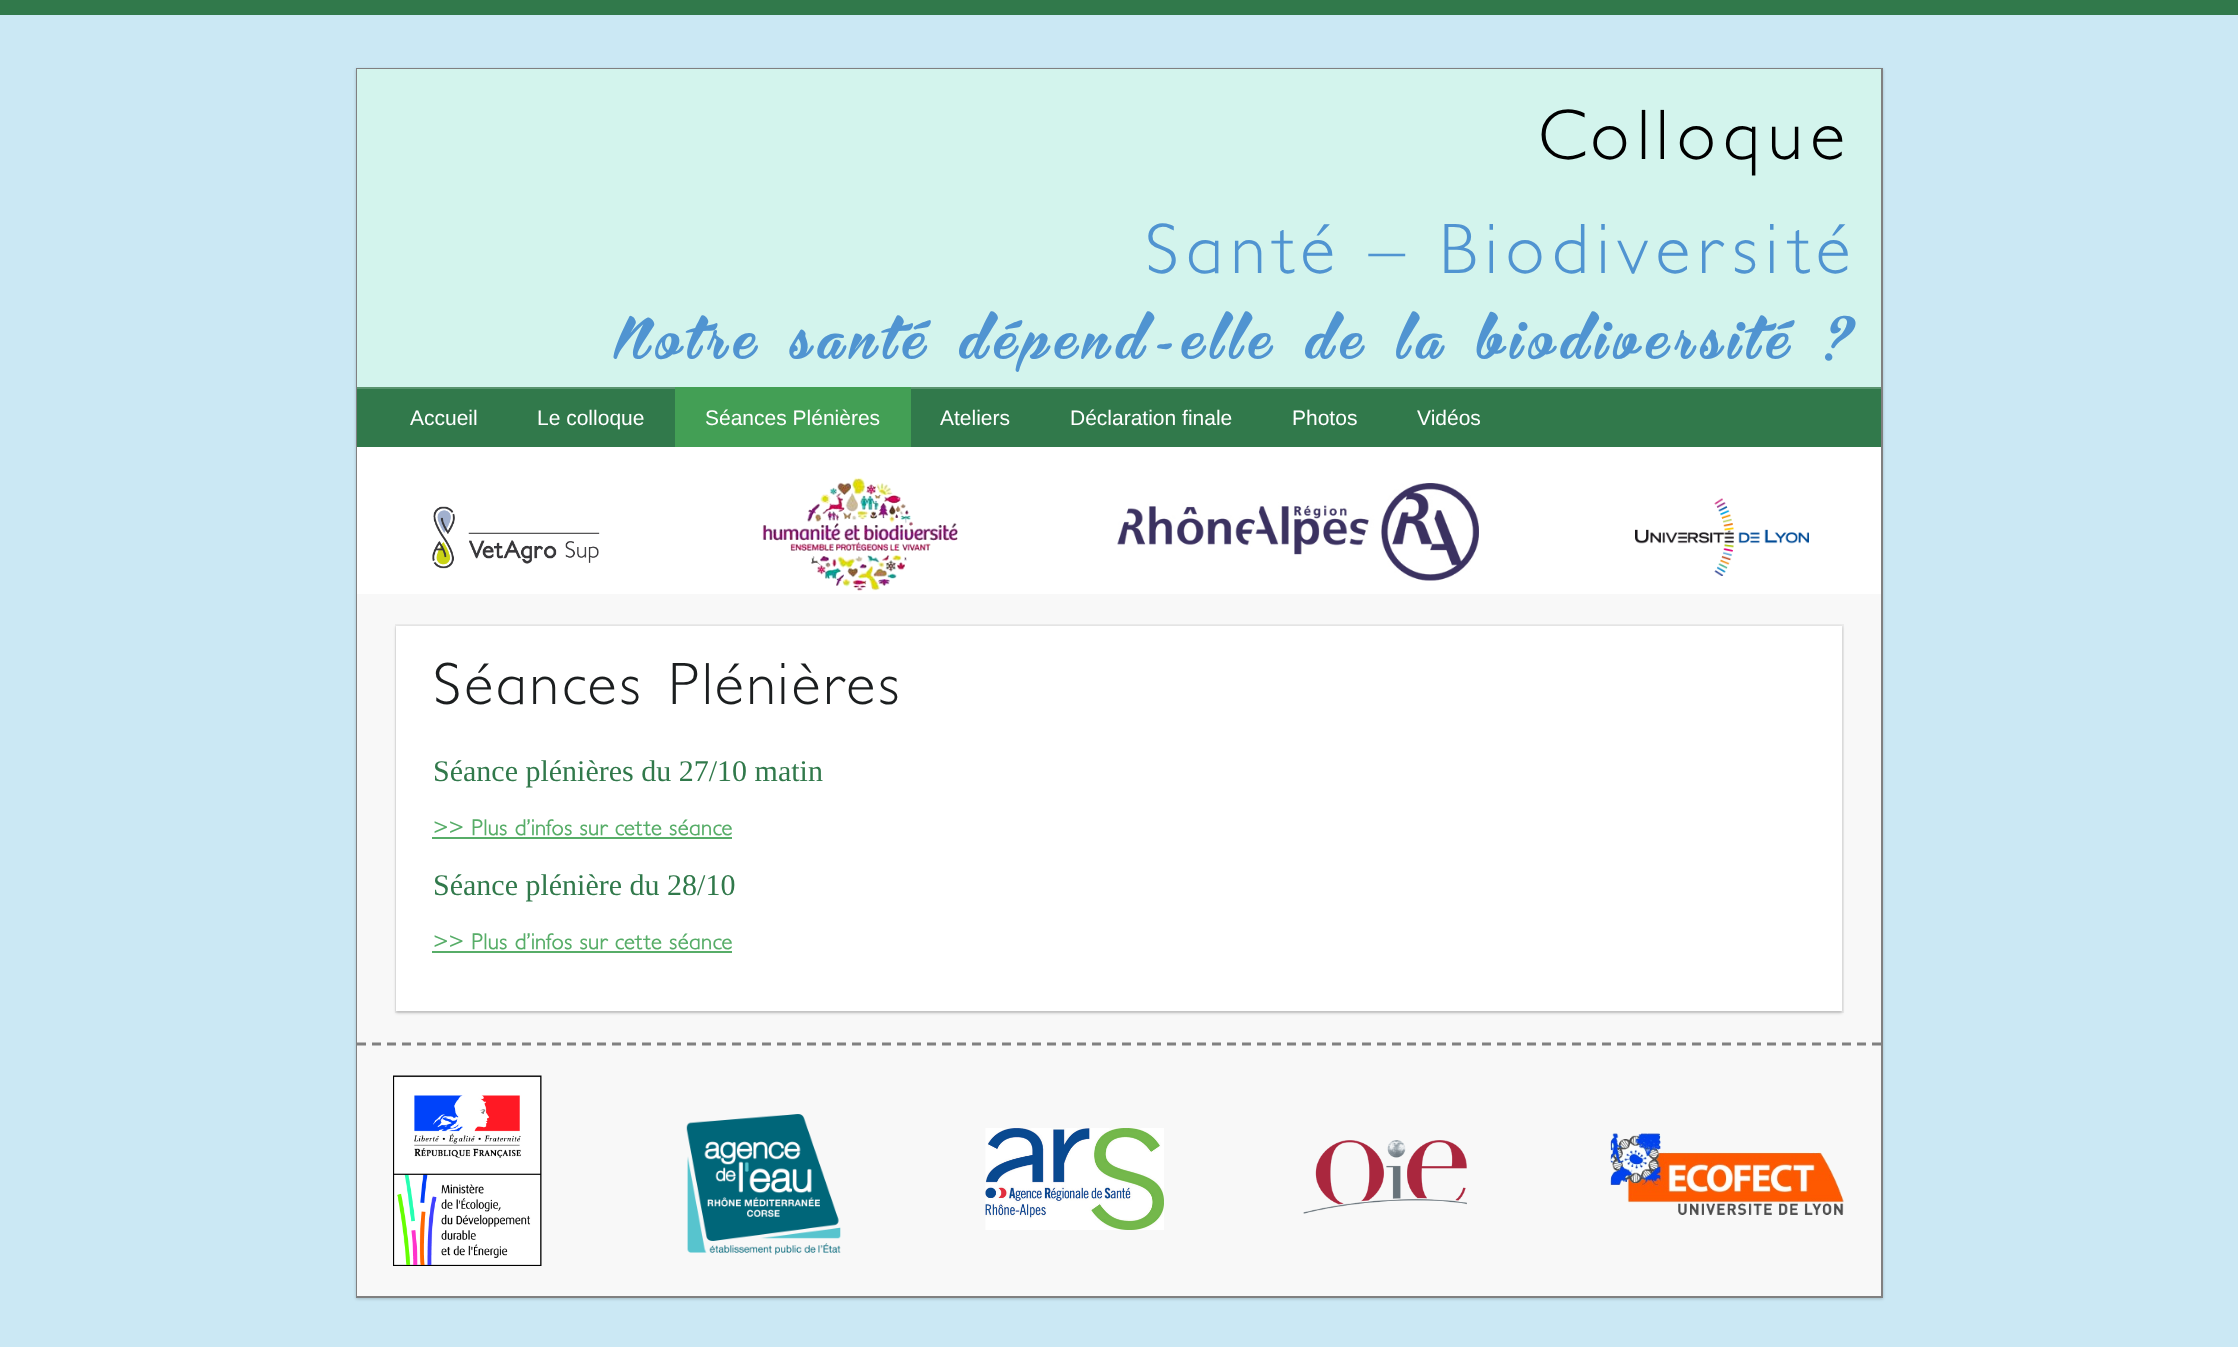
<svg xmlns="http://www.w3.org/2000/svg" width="2238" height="1347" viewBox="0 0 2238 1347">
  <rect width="100%" height="100%" fill="#cbe8f4"/>
  <path d="M0 0h2238v15H0z" fill="#31794b"/>
  <path d="M356 69h1527v1230H356z" fill="#00000033" filter="blur(1.5px)"/>
  <path d="M357 69h1525v1228H357z" fill="none" stroke="#808080" stroke-width="2"/>
  <path d="M357 69h1524v318H357z" fill="#d3f4ed"/>
  <path d="M357 389h1524v58H357z" fill="#31794b"/>
  <path d="M357 387h1524v2H357z" fill="#5a946f"/>
  <path d="M675 387h236v60H675z" fill="#439f55"/>
  <path d="M357 447h1524v147H357z" fill="#fff"/>
  <image x="432" y="506" width="168" height="63" href="img/1.png"/>
  <image x="762" y="477" width="196" height="114" href="img/2.png"/>
  <image x="1117" y="483" width="362" height="98" href="img/3.png"/>
  <image x="1635" y="498" width="174" height="78" href="img/4.png"/>
  <path d="M357 594h1524v702H357z" fill="#f8f8f8"/>
  <path d="M396 625h1447v387H396z" fill="none" stroke="#ececec" stroke-width="2"/>
  <path d="M396 627h1446v386H396z" fill="#00000033" filter="blur(1.5px)"/>
  <path d="M396 626h1446v385H396z" fill="#fff"/>
  <path d="M432 837h300v2H432z" fill="#57ad68"/>
  <path d="M432 951h300v2H432z" fill="#57ad68"/>
  <path d="M357 1044H1881" fill="none" stroke="#808080" stroke-width="3" stroke-dasharray="9 6"/>
  <image x="393" y="1075" width="149" height="191" href="img/5.png"/>
  <image x="686" y="1114" width="155" height="141" href="img/6.png"/>
  <image x="985" y="1128" width="179" height="102" href="img/7.png"/>
  <image x="1303" y="1140" width="164" height="74" href="img/8.png"/>
  <image x="1610" y="1133" width="234" height="82" href="img/9.png"/>
  <text x="1538" y="159" font-family="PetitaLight" font-size="72" font-weight="300" letter-spacing="7.5" fill="#000">Colloque</text>
  <text x="1145" y="273" word-spacing="-1" font-family="PetitaLight" font-size="72" font-weight="300" letter-spacing="7.5" fill="#5094d1">Santé – Biodiversité</text>
  <text x="612" y="359" font-family="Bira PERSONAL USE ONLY" font-size="51" letter-spacing="7.5" fill="#5094d1">Notre santé dépend-elle de la biodiversité ?</text>
  <g font-family="Liberation Sans" font-size="21" fill="#fff">
    <text x="410" y="425">Accueil</text>
    <text x="537" y="425">Le colloque</text>
    <text x="705" y="425">Séances Plénières</text>
    <text x="940" y="425">Ateliers</text>
    <text x="1070" y="425">Déclaration finale</text>
    <text x="1292" y="425">Photos</text>
    <text x="1417" y="425">Vidéos</text>
  </g>
  <text x="433" y="704" word-spacing="5" font-family="PetitaLight" font-size="60" font-weight="300" letter-spacing="3" fill="#1b1e1f">Séances Plénières</text>
  <text x="433" y="781" font-family="Liberation Serif" font-size="30" fill="#31794b">Séance plénières du 27/10 matin</text>
  <text x="433" y="835" word-spacing="0.5" font-family="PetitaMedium" font-size="22.5" font-weight="500" fill="#57ad68">&gt;&gt; Plus d’infos sur cette séance</text>
  <text x="433" y="895" font-family="Liberation Serif" font-size="30" fill="#31794b">Séance plénière du 28/10</text>
  <text x="433" y="949" word-spacing="0.5" font-family="PetitaMedium" font-size="22.5" font-weight="500" fill="#57ad68">&gt;&gt; Plus d’infos sur cette séance</text>
</svg>
